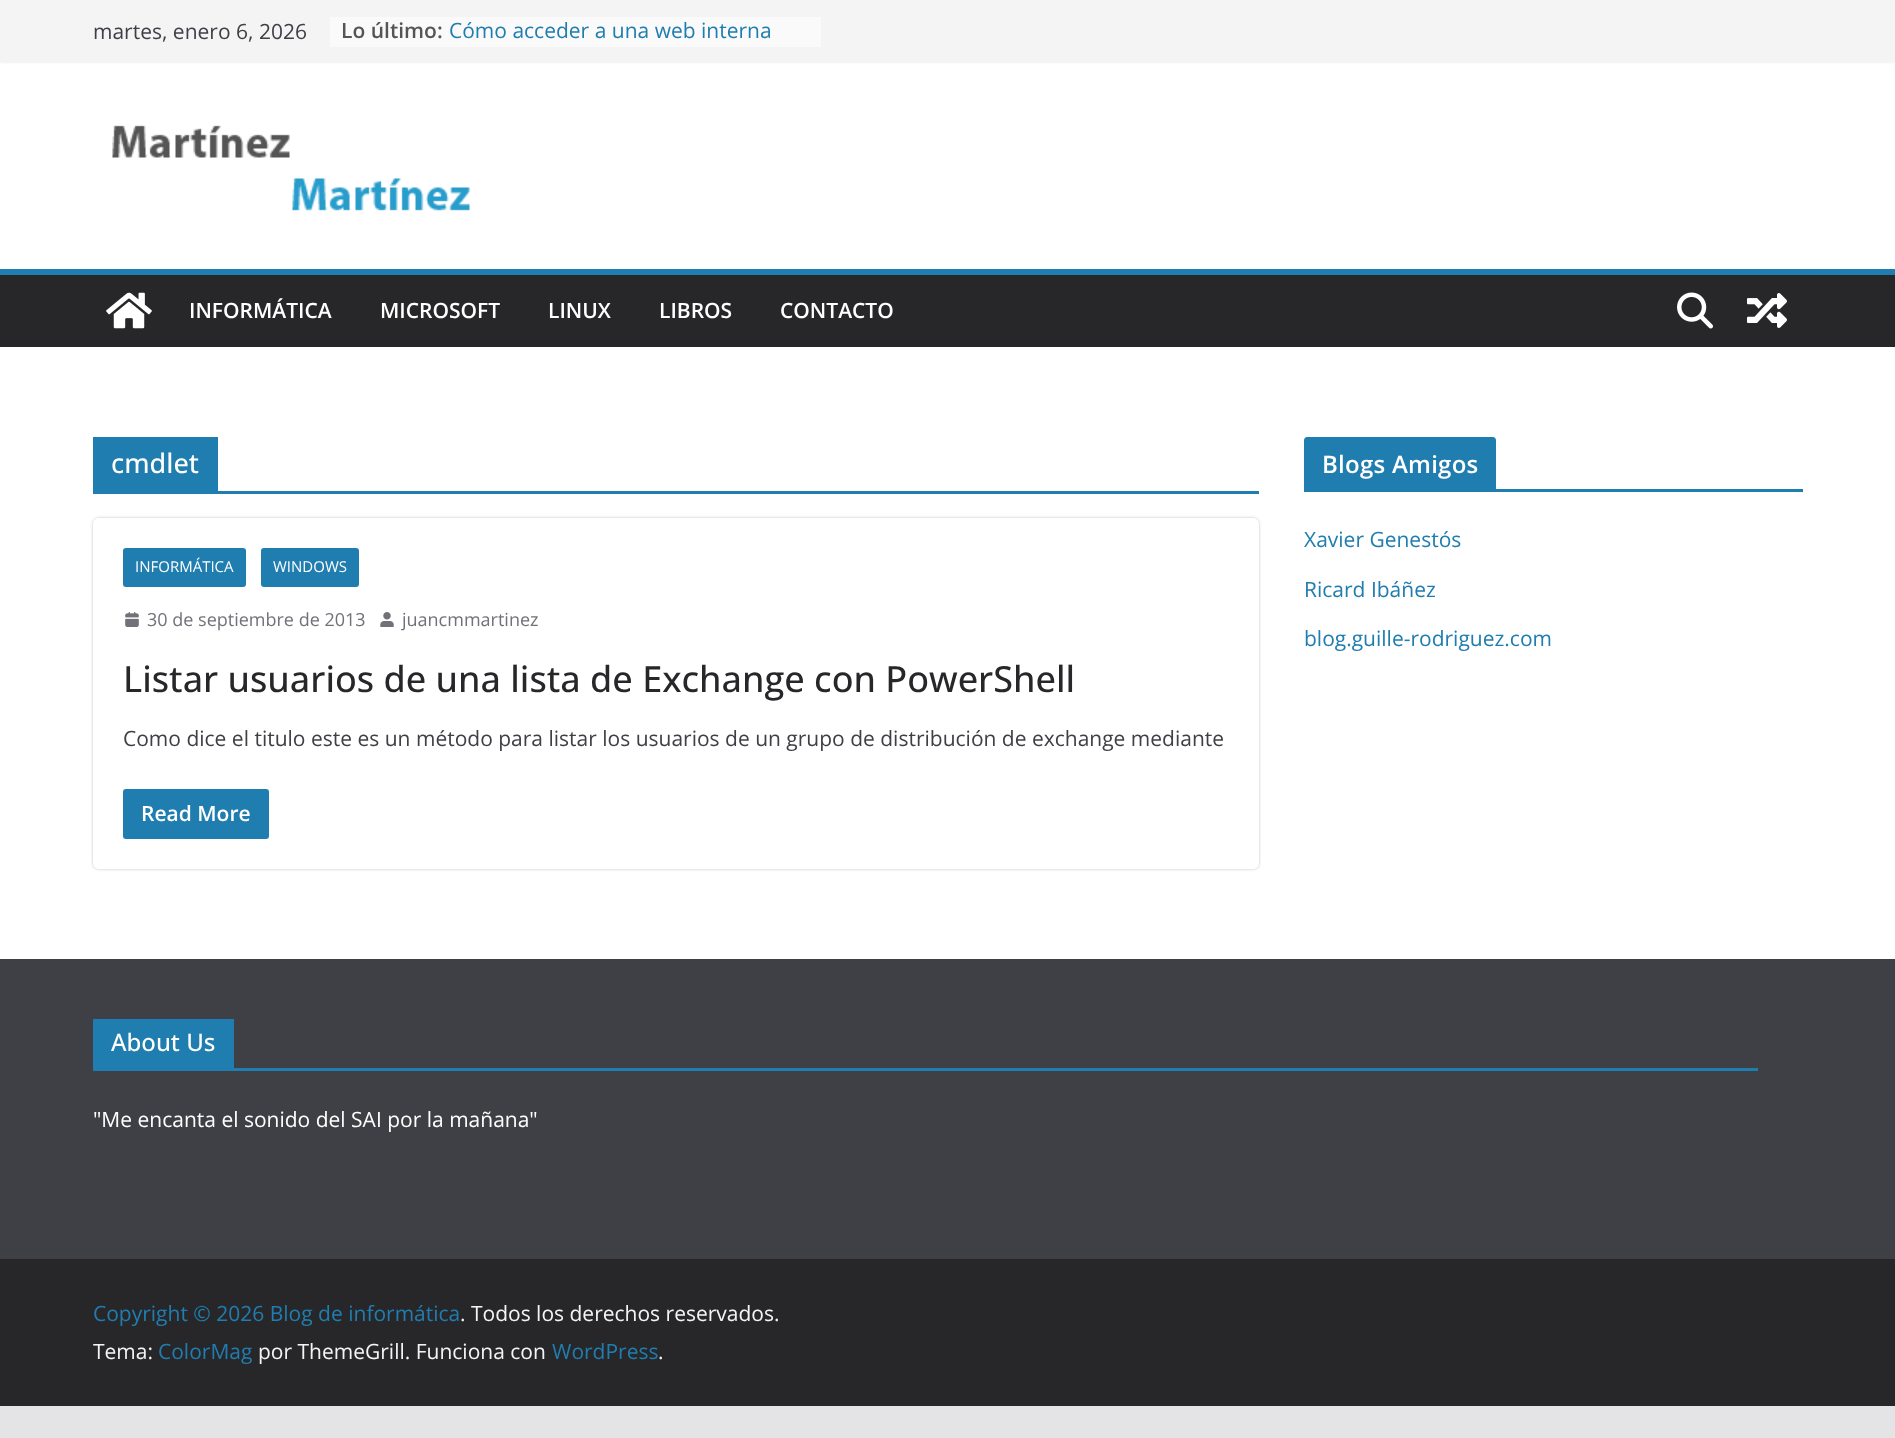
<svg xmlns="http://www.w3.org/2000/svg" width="1895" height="1438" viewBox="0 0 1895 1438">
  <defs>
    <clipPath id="clip1"><path d="M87 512H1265V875H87ZM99 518H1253C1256.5 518 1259 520.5 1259 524V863C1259 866.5 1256.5 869 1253 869H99C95.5 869 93 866.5 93 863V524C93 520.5 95.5 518 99 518Z" clip-rule="evenodd"/></clipPath>
  </defs>
  <rect width="100%" height="100%" fill="#e4e4e7"/>
  <path d="M0 62h1895v207H0z" fill="#fff"/>
  <path d="M0 0h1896v62H0z" fill="#0000001a" filter="blur(1.5px)"/>
  <path d="M0 0h1895v62H0z" fill="#f4f4f5"/>
  <path d="M330 17h491v30H330z" fill="#fafafa"/>
  <image x="112" y="125" width="358" height="86" href="img/1.png"/>
  <path d="M0 275h1895v72H0z" fill="#27272a"/>
  <path d="M0 269h1895v6H0z" fill="#207daf"/>
  <image x="106" y="292" width="46" height="37" href="img/2.png"/>
  <image x="1677" y="292" width="36" height="37" href="img/3.png"/>
  <image x="1747" y="293" width="40" height="35" href="img/4.png"/>
  <path d="M0 347h1895v612H0z" fill="#fff"/>
  <path d="M93 491h1166v3H93z" fill="#207daf"/>
  <path d="M93 437h125v54H93z" fill="#207daf"/>
  <g clip-path="url(#clip1)">
    <rect x="93" y="518" width="1166" height="351" rx="6" fill="#0000003d" filter="blur(1.5px)"/>
  </g>
  <rect x="123" y="548" width="123" height="39" rx="3" fill="#207daf"/>
  <rect x="261" y="548" width="98" height="39" rx="3" fill="#207daf"/>
  <image x="125" y="612" width="14" height="15" href="img/5.png"/>
  <image x="380" y="612" width="14" height="15" href="img/6.png"/>
  <rect x="123" y="789" width="146" height="50" rx="3" fill="#207daf"/>
  <path d="M1304 489h499v3H1304z" fill="#207daf"/>
  <path d="M1307 437H1493C1494.5 437 1496 438.5 1496 440V489H1304V440C1304 438.5 1305.5 437 1307 437Z" fill="#207daf"/>
  <path d="M0 959h1895v300H0z" fill="#3f3f46"/>
  <path d="M93 1068h1665v3H93z" fill="#207daf"/>
  <path d="M93 1019h141v49H93z" fill="#207daf"/>
  <path d="M0 1259h1895v147H0z" fill="#27272a"/>
  <text x="93" y="39" font-family="Open Sans" font-size="21" fill="#3f3f46">martes, enero 6, 2026</text>
  <text x="341" y="38" font-family="Open Sans" font-size="21" font-weight="600" fill="#555">Lo último:</text>
  <text x="449" y="38" font-family="Open Sans" font-size="21" fill="#207daf">Cómo acceder a una web interna</text>
  <g font-family="Open Sans" font-size="21" font-weight="600" fill="#fff">
    <text x="189" y="318">INFORMÁTICA</text>
    <text x="380" y="318">MICROSOFT</text>
    <text x="548" y="318">LINUX</text>
    <text x="659" y="318">LIBROS</text>
    <text x="780" y="318">CONTACTO</text>
  </g>
  <text x="111" y="473" font-family="Open Sans" font-size="27" font-weight="500" fill="#fff">cmdlet</text>
  <g font-family="Open Sans" font-size="15" fill="#fff">
    <text x="135" y="572">INFORMÁTICA</text>
    <text x="273" y="572">WINDOWS</text>
  </g>
  <g font-family="Open Sans" font-size="18" fill="#71717a">
    <text x="147" y="626">30 de septiembre de 2013</text>
    <text x="402" y="626">juancmmartinez</text>
  </g>
  <text x="123" y="692" font-family="Open Sans" font-size="36" font-weight="500" fill="#27272a">Listar usuarios de una lista de Exchange con PowerShell</text>
  <text x="123" y="746" font-family="Open Sans" font-size="21" fill="#3f3f46">Como dice el titulo este es un método para listar los usuarios de un grupo de distribución de exchange mediante</text>
  <text x="141" y="821" font-family="Open Sans" font-size="21" font-weight="600" fill="#fff">Read More</text>
  <text x="1322" y="473" font-family="Open Sans" font-size="24" font-weight="600" letter-spacing="0.25" fill="#fff">Blogs Amigos</text>
  <g font-family="Open Sans" font-size="21" fill="#207daf">
    <text x="1304" y="547">Xavier Genestós</text>
    <text x="1304" y="597">Ricard Ibáñez</text>
    <text x="1304" y="646">blog.guille-rodriguez.com</text>
  </g>
  <text x="111" y="1051" font-family="Open Sans" font-size="24" font-weight="500" fill="#fff">About Us</text>
  <text x="93" y="1127" font-family="Open Sans" font-size="21" fill="#fff">"Me encanta el sonido del SAI por la mañana"</text>
  <text x="93" y="1321" font-family="Open Sans" font-size="21" fill="#207daf">Copyright © 2026 Blog de informática</text>
  <g font-family="Open Sans" font-size="21" fill="#f4f4f5">
    <text x="460" y="1321">. Todos los derechos reservados.</text>
    <text x="93" y="1359">Tema:</text>
  </g>
  <text x="158" y="1359" font-family="Open Sans" font-size="21" fill="#207daf">ColorMag</text>
  <text x="258" y="1359" font-family="Open Sans" font-size="21" fill="#f4f4f5">por ThemeGrill. Funciona con</text>
  <text x="552" y="1359" font-family="Open Sans" font-size="21" fill="#207daf">WordPress</text>
  <text x="658" y="1359" font-family="Open Sans" font-size="21" fill="#f4f4f5">.</text>
</svg>
